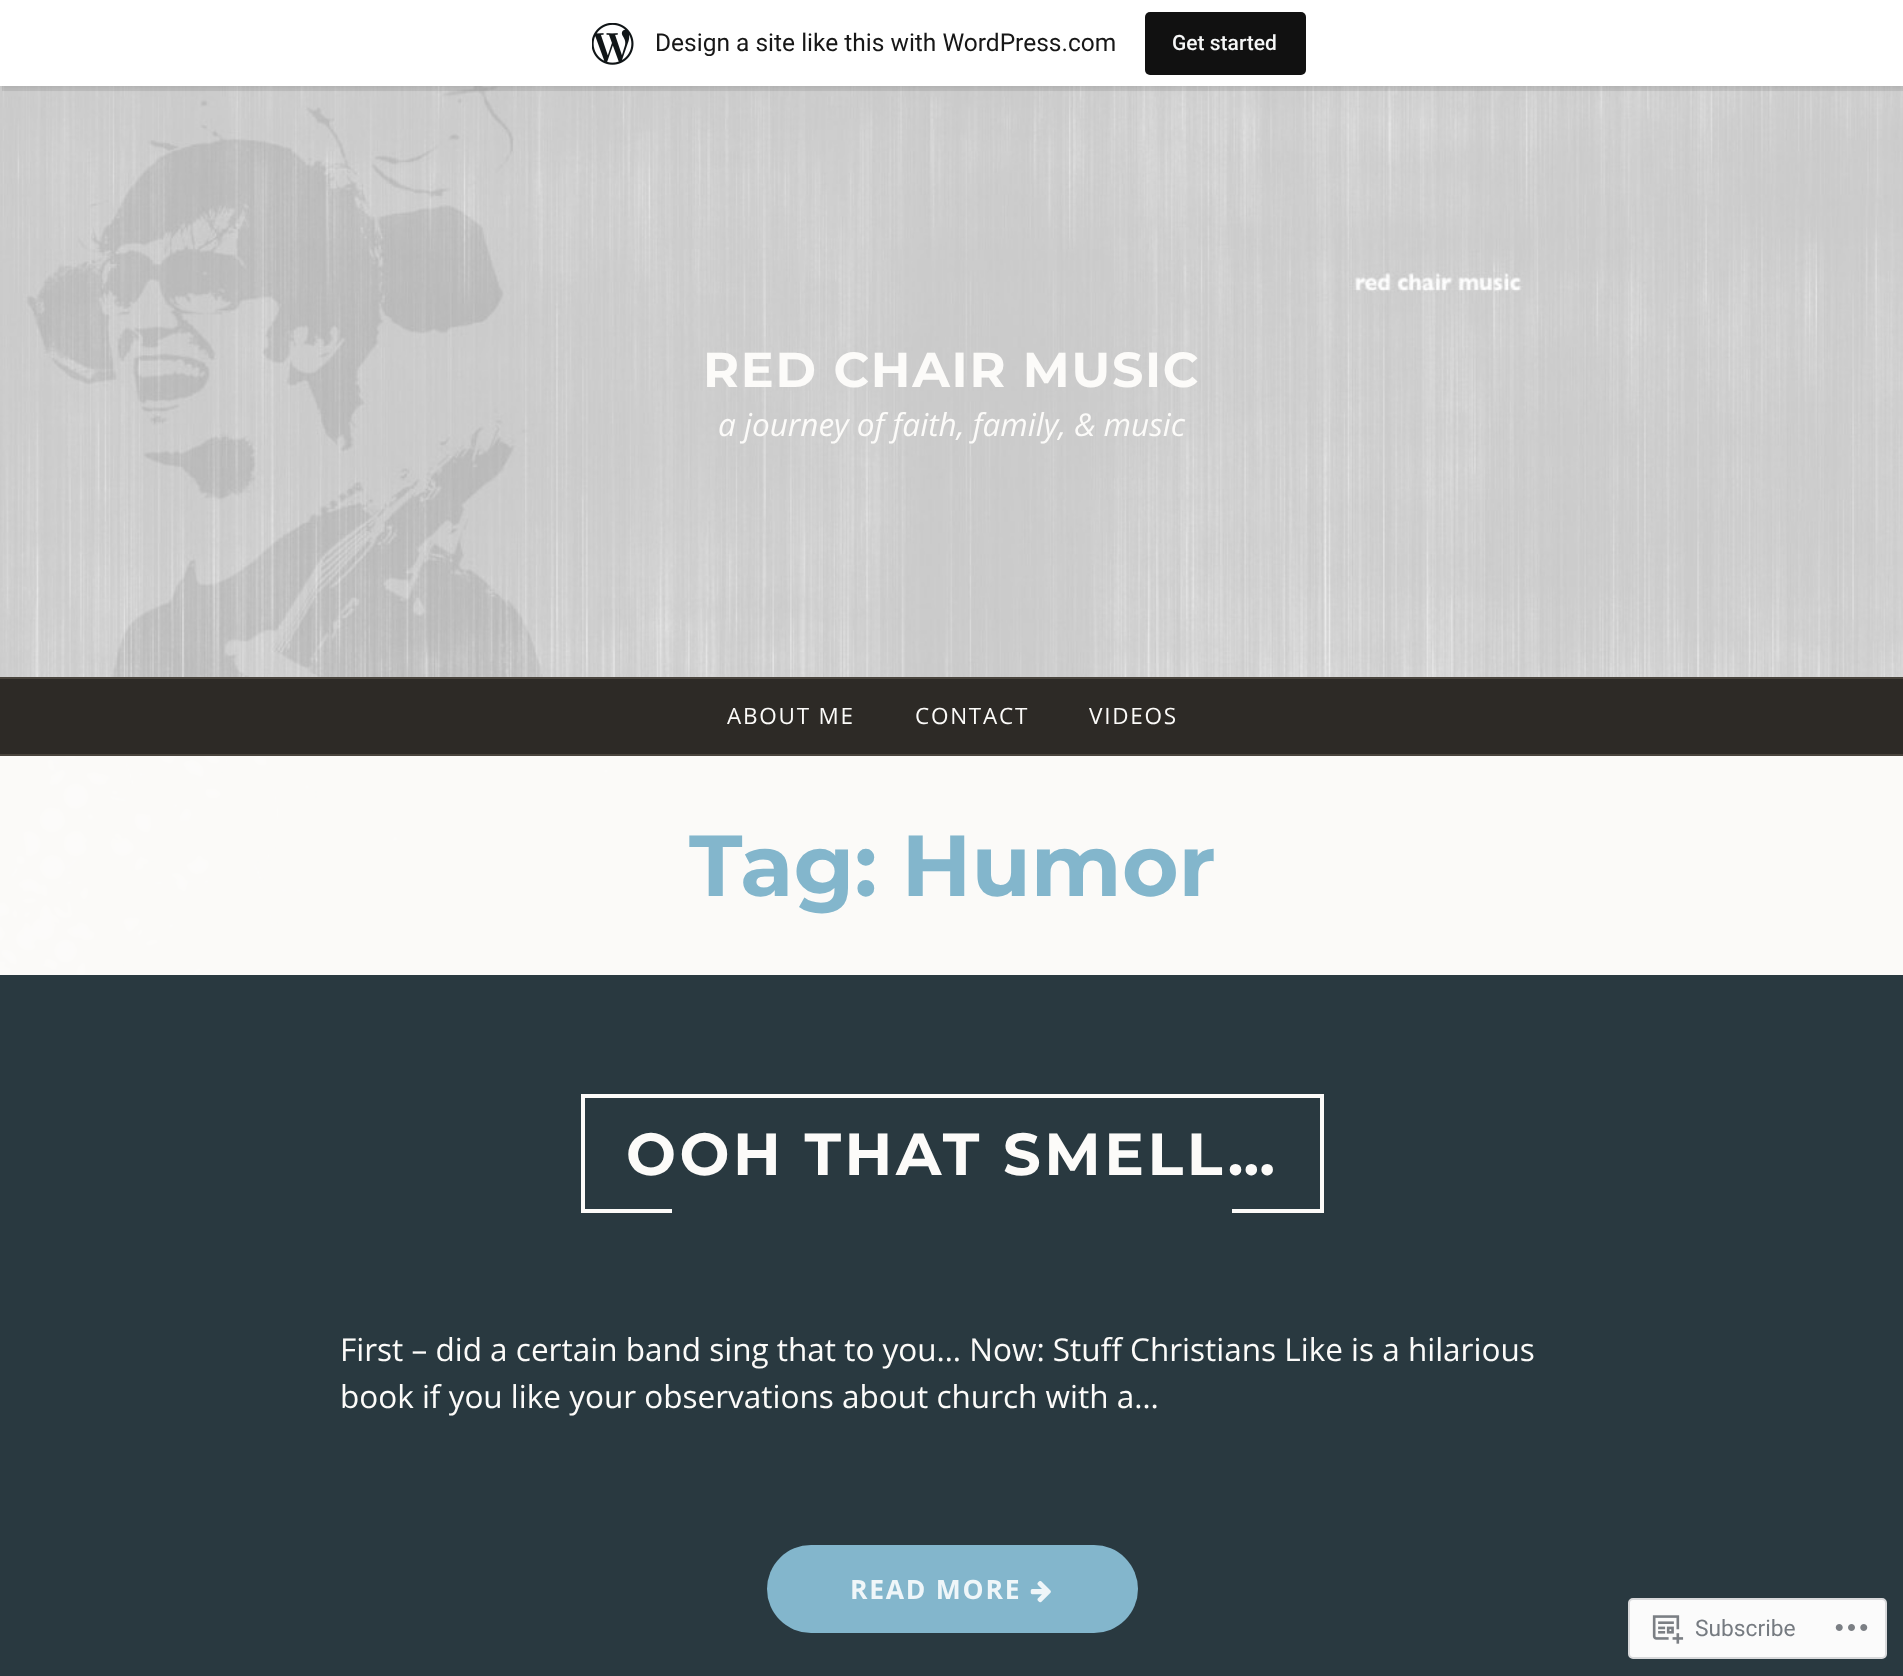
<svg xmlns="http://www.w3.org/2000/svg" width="1903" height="1676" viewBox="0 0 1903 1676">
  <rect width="100%" height="100%" fill="#fff"/>
  <image x="0" y="756" width="1903" height="219" href="img/1.png"/>
  <image x="0" y="86" width="1903" height="591" href="img/3.png"/>
  <path d="M0 2h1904v86H0z" fill="#0000000d" filter="blur(2px)"/>
  <path d="M2 86V91H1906V5H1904V86Z" fill="#00000014"/>
  <path d="M0 0h1903v86H0z" fill="#fff"/>
  <image x="592" y="23" width="42" height="42" href="img/2.png"/>
  <rect x="1145" y="12" width="161" height="63" rx="5" fill="#111"/>
  <path d="M0 679h1903v75H0z" fill="#2d2a26"/>
  <path d="M0 677h1903v2H0z" fill="#49443d"/>
  <path d="M0 754h1903v2H0z" fill="#49443d"/>
  <path d="M0 975h1903v701H0z" fill="#293940"/>
  <path d="M581 1094h742v4H581z" fill="#fcfbf9"/>
  <path d="M1320 1094h4v119H1320z" fill="#fcfbf9"/>
  <path d="M581 1094h4v119H581z" fill="#fcfbf9"/>
  <path d="M585 1209h87v4H585z" fill="#fcfbf9"/>
  <path d="M1232 1209h88v4H1232z" fill="#fcfbf9"/>
  <rect x="767" y="1545" width="371" height="88" rx="44" fill="#83b6cc"/>
  <image x="1030" y="1581" width="21" height="22" href="img/4.png"/>
  <rect x="1629" y="1599" width="257" height="59" rx="4" fill="#fbfbfb" stroke="#d8d9db" stroke-width="2"/>
  <image x="1652" y="1615" width="32" height="29" href="img/5.png"/>
  <image x="1835" y="1624" width="33" height="7" href="img/6.png"/>
  <text x="655" y="51" font-family="Roboto" font-size="24.5" fill="#171717">Design a site like this with WordPress.com</text>
  <text x="1172" y="50" font-family="Roboto" font-size="21" font-weight="500" fill="#f6f7f7">Get started</text>
  <text x="703" y="387" font-family="Montserrat" font-size="49.1" font-weight="100" letter-spacing="1.75" fill="#fcfbf9">RED CHAIR MUSIC</text>
  <text x="718" y="436" font-family="Open Sans" font-size="31.5" font-style="italic" fill="#fcfbf9">a journey of faith, family, &amp; music</text>
  <g font-family="Open Sans" font-size="22.5" letter-spacing="1.75" fill="#fcfbf9">
    <text x="727" y="724">ABOUT ME</text>
    <text x="915" y="724">CONTACT</text>
    <text x="1089" y="724">VIDEOS</text>
  </g>
  <text x="689" y="896" font-family="Montserrat" font-size="86.5" font-weight="100" fill="#83b6cc">Tag: Humor</text>
  <text x="626" y="1175" font-family="Montserrat" font-size="59.2" font-weight="100" letter-spacing="3.5" fill="#fcfbf9">OOH THAT SMELL…</text>
  <g font-family="Open Sans" font-size="31.5" fill="#fcfbf9">
    <text x="340" y="1361">First – did a certain band sing that to you… Now: Stuff Christians Like is a hilarious</text>
    <text x="340" y="1408">book if you like your observations about church with a…</text>
  </g>
  <text x="850" y="1599" font-family="Open Sans" font-size="26.5" font-weight="bold" letter-spacing="1.75" fill="#eff6f9">READ MORE</text>
  <text x="1695" y="1636" font-family="Roboto" font-size="22.75" fill="#767b81">Subscribe</text>
</svg>
